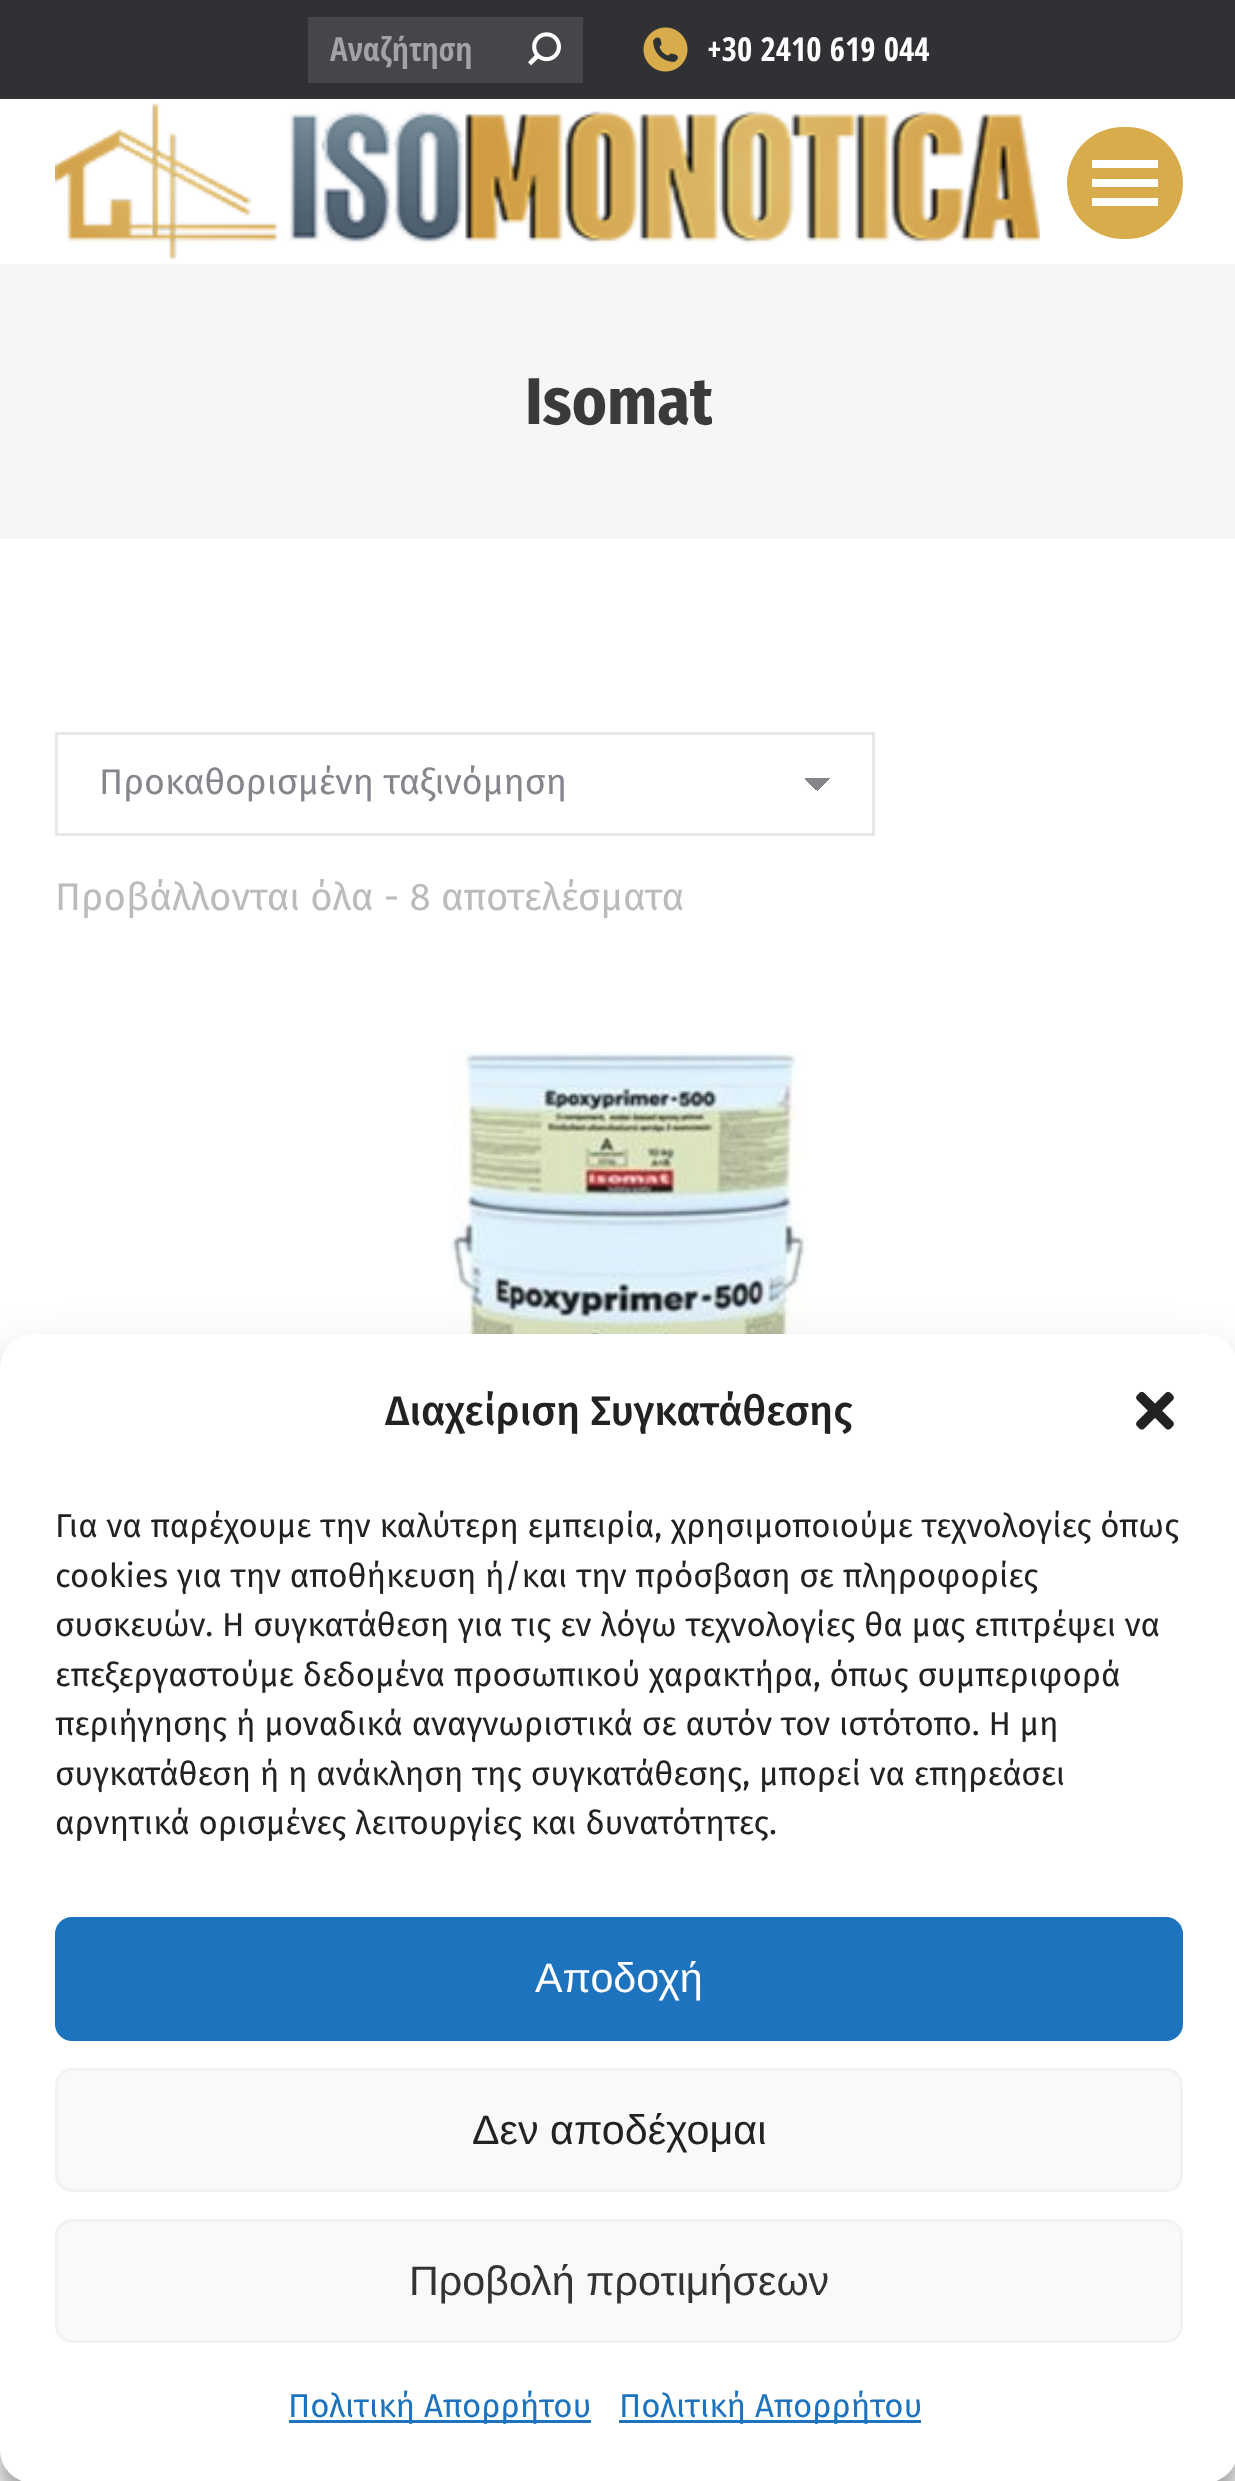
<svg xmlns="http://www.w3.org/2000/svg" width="1235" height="2481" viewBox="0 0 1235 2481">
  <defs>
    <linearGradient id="g1" gradientUnits="userSpaceOnUse" x1="817" y1="777" x2="831" y2="791"><stop offset="0.5" stop-color="#85868c"/><stop offset="0.5" stop-color="#fdfdfd"/></linearGradient>
    <linearGradient id="g2" gradientUnits="userSpaceOnUse" x1="803" y1="791" x2="817" y2="777"><stop offset="0.5" stop-color="#fdfdfd"/><stop offset="0.5" stop-color="#85868c"/></linearGradient>
    <clipPath id="clip1"><path d="M525 355h187v93H525z"/></clipPath>
  </defs>
  <rect width="100%" height="100%" fill="#fff"/>
  <path d="M0 0h1235v99H0z" fill="#303135"/>
  <path d="M308 17h275v66H308z" fill="#454649"/>
  <image x="528" y="32" width="33" height="34" href="img/1.png"/>
  <image x="643" y="27" width="45" height="45" href="img/2.png"/>
  <image x="55" y="103" width="985" height="158" href="img/3.png"/>
  <rect x="1067" y="127" width="116" height="112" rx="56" fill="#d9ac4b"/>
  <path d="M1092 160h66v8H1092z" fill="#fff"/>
  <path d="M1092 179h66v8H1092z" fill="#fff"/>
  <path d="M1092 198h66v8H1092z" fill="#fff"/>
  <path d="M0 264h1235v275H0z" fill="#f6f6f6"/>
  <path d="M817 778h13v13H817z" fill="url(#g1)"/>
  <path d="M805 778h12v12H805z" fill="url(#g2)"/>
  <path d="M56.5 733.5h817v101H56.5z" fill="none" stroke="#e8e8e8" stroke-width="3"/>
  <image x="450" y="1051" width="358" height="283" href="img/4.png"/>
  <rect y="1350" width="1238" height="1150" rx="33" fill="#0000003b" filter="blur(8px)"/>
  <rect y="1361" width="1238" height="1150" rx="33" fill="#00000030" filter="blur(27.5px)"/>
  <rect y="1334" width="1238" height="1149" rx="33" fill="#fff"/>
  <image x="1136" y="1391" width="38" height="39" href="img/5.png"/>
  <rect x="56.5" y="1918.5" width="1125" height="121" rx="15.5" fill="#1e73be" stroke="#1e73be" stroke-width="3"/>
  <rect x="56.5" y="2069.5" width="1125" height="121" rx="15.5" fill="#f9f9f9" stroke="#f2f2f2" stroke-width="3"/>
  <rect x="56.5" y="2220.5" width="1125" height="121" rx="15.5" fill="#f9f9f9" stroke="#f2f2f2" stroke-width="3"/>
  <path d="M289 2420h302v3H289z" fill="#1e73be"/>
  <path d="M619 2420h302v3H619z" fill="#1e73be"/>
  <text x="330" y="61" font-family="Open Sans Condensed" font-size="33" font-weight="bold" fill="#a2a3a4">Αναζήτηση</text>
  <text x="707" y="61" font-family="Open Sans Condensed" font-size="33" font-weight="bold" fill="#fff">+30 2410 619 044</text>
  <g clip-path="url(#clip1)">
    <text x="525" y="424" font-family="Fira Sans Condensed" font-size="66" font-weight="bold" fill="#3a3a3a">Isomat</text>
  </g>
  <text x="99" y="794" font-family="Fira Sans" font-size="35.75" fill="#85868c">Προκαθορισμένη ταξινόμηση</text>
  <text x="55" y="910" font-family="Fira Sans" font-size="38.5" fill="#bbb">Προβάλλονται όλα - 8 αποτελέσματα</text>
  <text x="385" y="1425" font-family="Fira Sans" font-size="41.25" font-weight="500" fill="#222">Διαχείριση Συγκατάθεσης</text>
  <g font-family="Fira Sans" font-size="33" fill="#222">
    <text x="55" y="1537">Για να παρέχουμε την καλύτερη εμπειρία, χρησιμοποιούμε τεχνολογίες όπως</text>
    <text x="55" y="1587">cookies για την αποθήκευση ή/και την πρόσβαση σε πληροφορίες</text>
    <text x="55" y="1636">συσκευών. Η συγκατάθεση για τις εν λόγω τεχνολογίες θα μας επιτρέψει να</text>
    <text x="55" y="1686">επεξεργαστούμε δεδομένα προσωπικού χαρακτήρα, όπως συμπεριφορά</text>
    <text x="55" y="1735">περιήγησης ή μοναδικά αναγνωριστικά σε αυτόν τον ιστότοπο. Η μη</text>
    <text x="55" y="1785">συγκατάθεση ή η ανάκληση της συγκατάθεσης, μπορεί να επηρεάσει</text>
    <text x="55" y="1834">αρνητικά ορισμένες λειτουργίες και δυνατότητες.</text>
  </g>
  <text x="535" y="1992" font-family="Liberation Sans" font-size="41.25" fill="#fff">Αποδοχή</text>
  <text x="472" y="2144" font-family="Liberation Sans" font-size="41.25" fill="#222">Δεν αποδέχομαι</text>
  <text x="409" y="2295" font-family="Liberation Sans" font-size="41.25" fill="#333">Προβολή προτιμήσεων</text>
  <g font-family="Fira Sans" font-size="33" fill="#1e73be">
    <text x="288" y="2417">Πολιτική Απορρήτου</text>
    <text x="619" y="2417">Πολιτική Απορρήτου</text>
  </g>
</svg>
